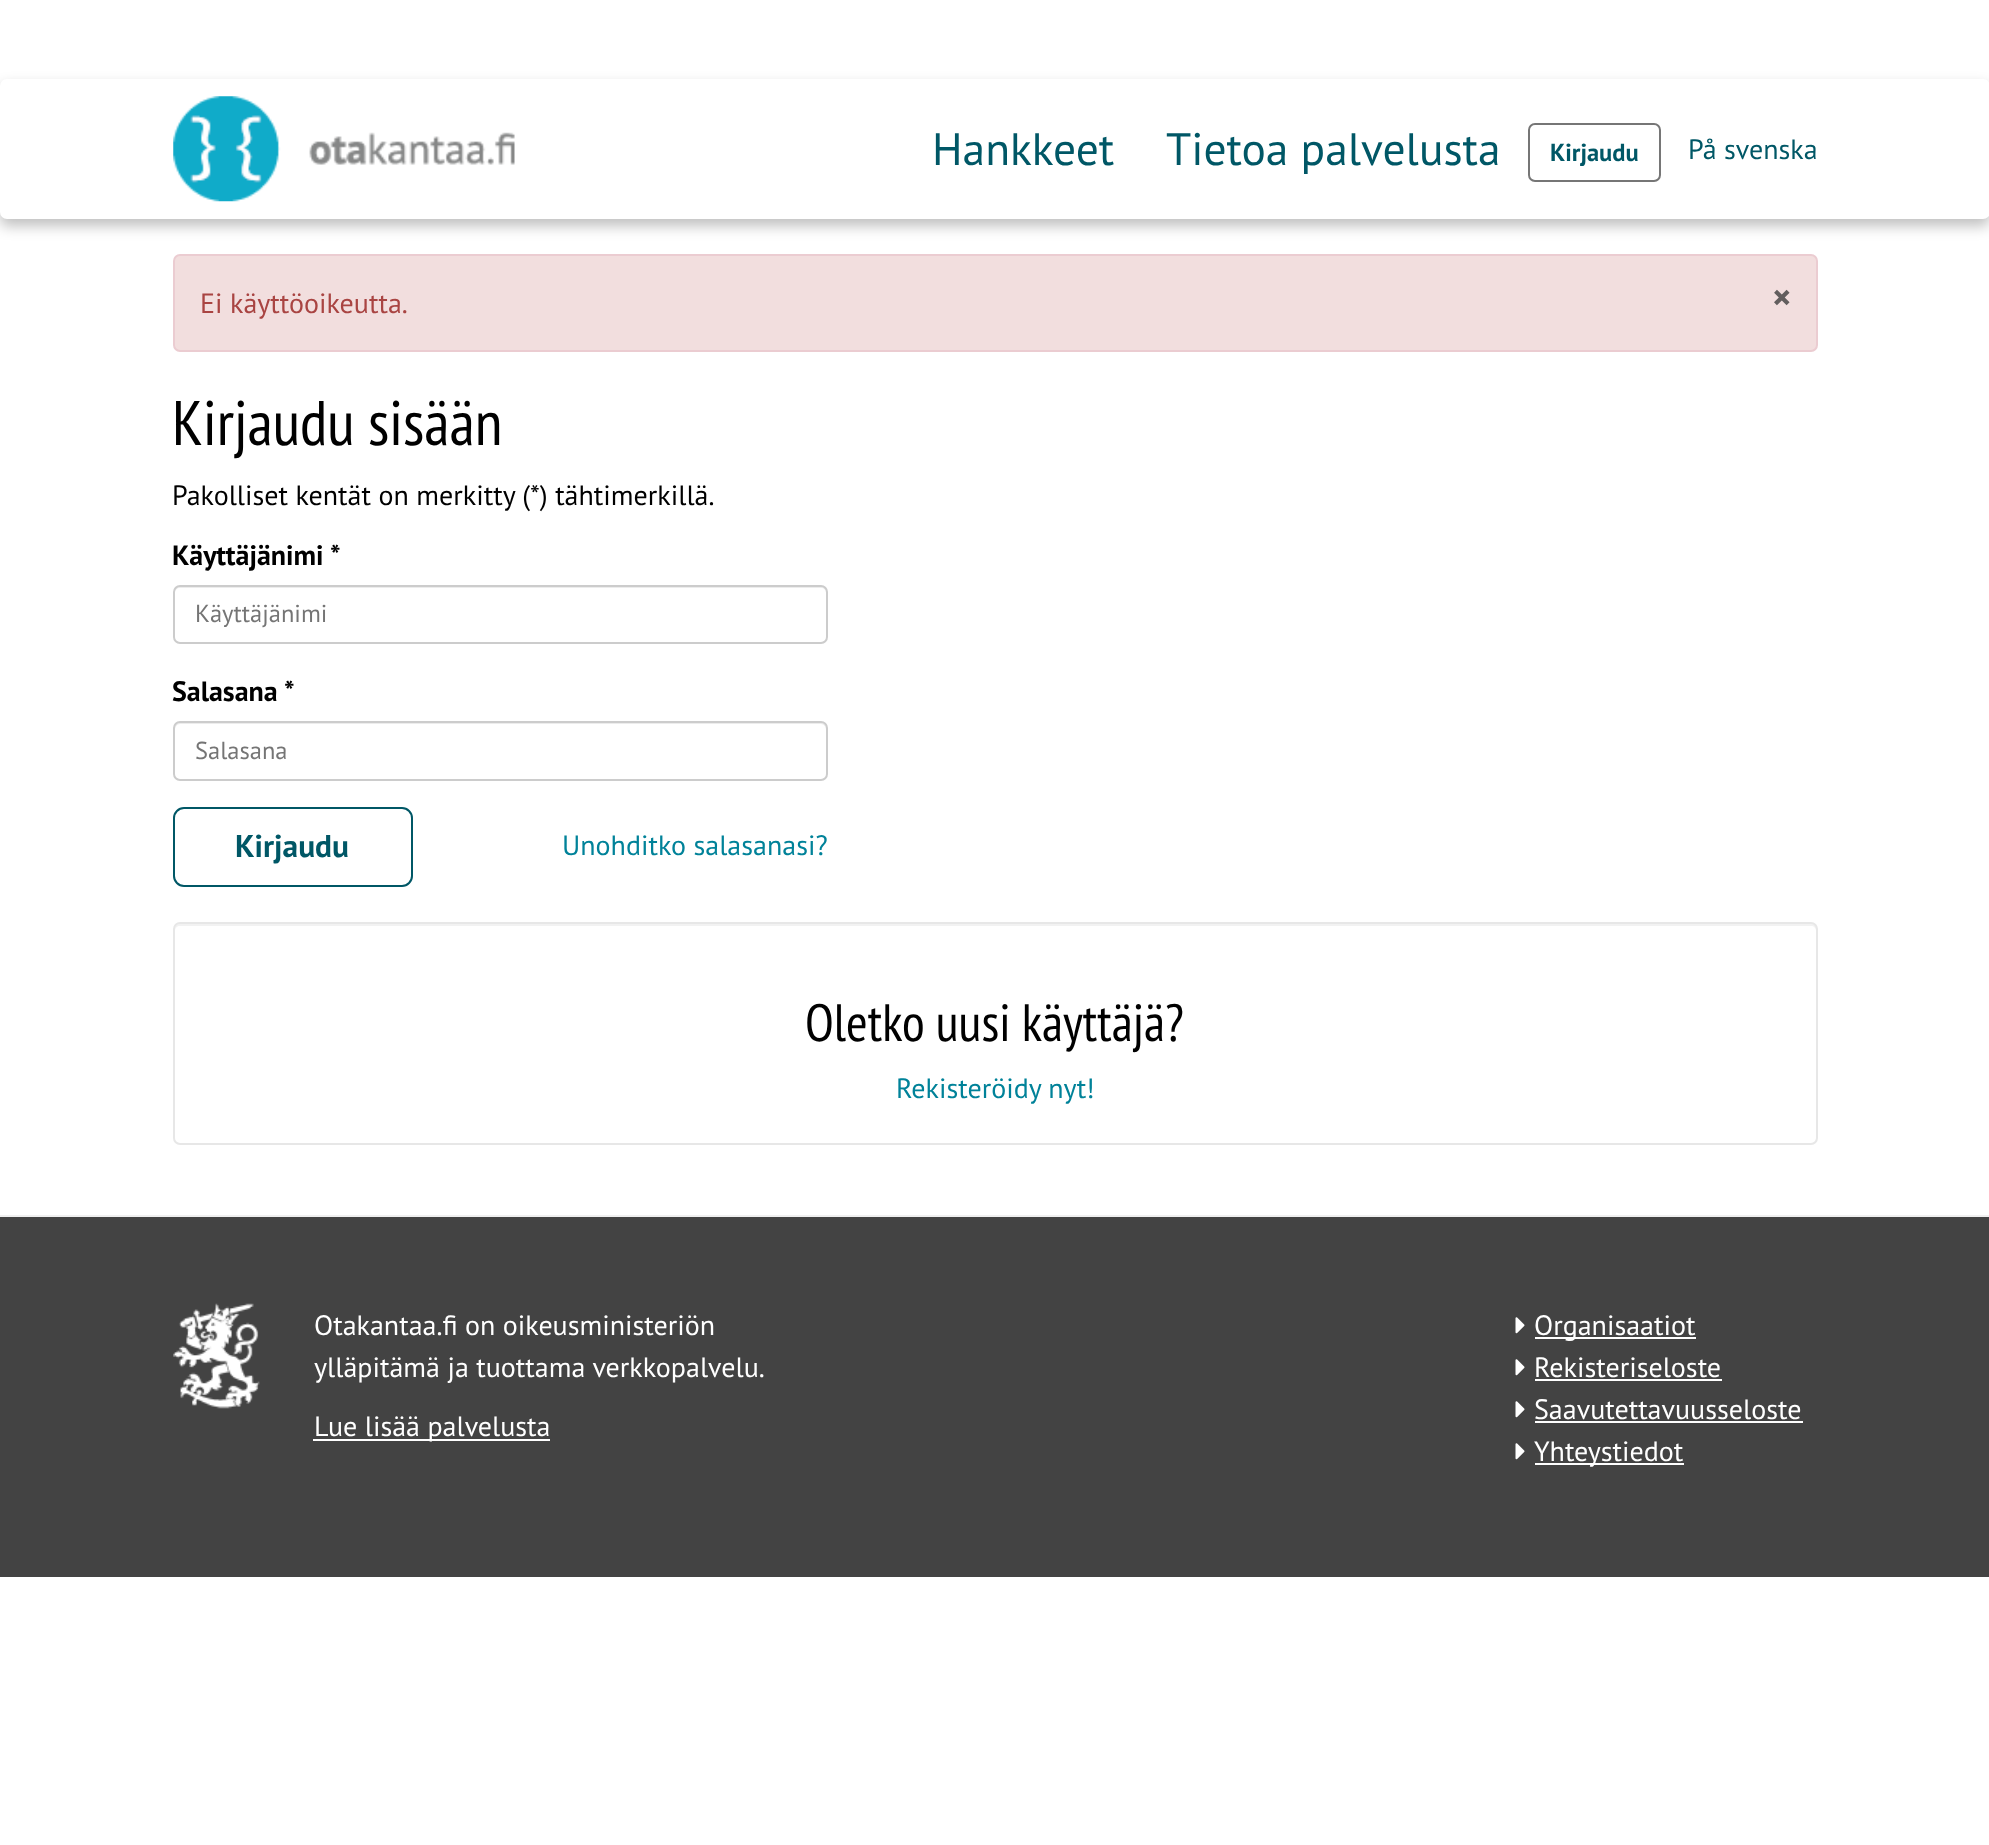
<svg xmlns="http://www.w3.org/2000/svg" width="1989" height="1845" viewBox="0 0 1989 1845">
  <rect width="100%" height="100%" fill="#fff"/>
  <rect y="86" width="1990" height="140" rx="7" fill="#00000040" filter="blur(7px)"/>
  <rect y="79" width="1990" height="140" rx="7" fill="#fff"/>
  <image x="173" y="96" width="342" height="106" href="img/1.png"/>
  <rect x="1529" y="124" width="131" height="57" rx="6" fill="none" stroke="#767676" stroke-width="2"/>
  <rect x="174" y="255" width="1643" height="96" rx="6" fill="#f2dede" stroke="#ebccd1" stroke-width="2"/>
  <path d="M180 588H821C824 588 826 590 826 593V591C826 588 824 586 821 586H180C177 586 175 588 175 591V593C175 590 177 588 180 588Z" fill="#ececec"/>
  <rect x="174" y="586" width="653" height="57" rx="6" fill="none" stroke="#ccc" stroke-width="2"/>
  <path d="M180 724H821C824 724 826 727 826 730V728C826 725 824 723 821 723H180C177 723 175 725 175 728V730C175 727 177 724 180 724Z" fill="#ececec"/>
  <rect x="174" y="722" width="653" height="58" rx="6" fill="none" stroke="#ccc" stroke-width="2"/>
  <rect x="174" y="808" width="238" height="78" rx="10" fill="none" stroke="#005766" stroke-width="2"/>
  <path d="M180 926H1811C1814 926 1816 928 1816 931V1139L1815 1142C1816 1141 1817 1139 1817 1138V929C1817 926 1815 924 1812 924H180C177 924 175 926 175 929V931C175 928 177 926 180 926Z" fill="#f2f2f2"/>
  <rect x="174" y="923" width="1643" height="221" rx="6" fill="none" stroke="#e7e7e7" stroke-width="2"/>
  <path d="M0 1217h1989v360H0z" fill="#434343"/>
  <path d="M0 1215h1989v2H0z" fill="#f0f0f0"/>
  <image x="173" y="1303" width="87" height="106" href="img/2.png"/>
  <path d="M313 1439h237v2H313z" fill="#fff"/>
  <image x="1515" y="1317" width="10" height="17" href="img/3.png"/>
  <path d="M1535 1337h161v2H1535z" fill="#fff"/>
  <image x="1515" y="1359" width="10" height="17" href="img/3.png"/>
  <path d="M1535 1379h187v2H1535z" fill="#fff"/>
  <image x="1515" y="1401" width="10" height="17" href="img/3.png"/>
  <path d="M1535 1421h268v2H1535z" fill="#fff"/>
  <image x="1515" y="1443" width="10" height="17" href="img/3.png"/>
  <path d="M1535 1463h149v2H1535z" fill="#fff"/>
  <g font-family="PT Sans" font-size="45.5" fill="#005766">
    <text x="932" y="165">Hankkeet</text>
    <text x="1166" y="165">Tietoa palvelusta</text>
  </g>
  <text x="1550" y="161" font-family="PT Sans" font-size="24.5" font-weight="bold" fill="#005766">Kirjaudu</text>
  <text x="1688" y="159" font-family="PT Sans" font-size="28" fill="#005766">På svenska</text>
  <text x="200" y="313" font-family="PT Sans" font-size="28" fill="#a94442">Ei käyttöoikeutta.</text>
  <text x="1772" y="310" font-family="PT Sans" font-size="37" font-weight="bold" fill="#635e5e">×</text>
  <text x="172" y="445" font-family="PT Sans Narrow" font-size="63" fill="#000">Kirjaudu sisään</text>
  <text x="172" y="505" font-family="PT Sans" font-size="28" fill="#000">Pakolliset kentät on merkitty (*) tähtimerkillä.</text>
  <g font-family="PT Sans" font-size="28" font-weight="bold" fill="#000">
    <text x="172" y="565">Käyttäjänimi</text>
    <text x="330" y="565">*</text>
  </g>
  <text x="195" y="622" font-family="PT Sans" font-size="24.5" fill="#757575">Käyttäjänimi</text>
  <g font-family="PT Sans" font-size="28" font-weight="bold" fill="#000">
    <text x="172" y="701">Salasana</text>
    <text x="284" y="701">*</text>
  </g>
  <text x="195" y="759" font-family="PT Sans" font-size="24.5" fill="#757575">Salasana</text>
  <text x="235" y="857" font-family="PT Sans" font-size="31.5" font-weight="bold" fill="#005766">Kirjaudu</text>
  <text x="562" y="855" font-family="PT Sans" font-size="28" fill="#008299">Unohditko salasanasi?</text>
  <text x="805" y="1041" font-family="PT Sans Narrow" font-size="52.5" fill="#000">Oletko uusi käyttäjä?</text>
  <text x="896" y="1098" font-family="PT Sans" font-size="28" fill="#008299">Rekisteröidy nyt!</text>
  <g font-family="PT Sans" font-size="28" fill="#fff">
    <text x="314" y="1335">Otakantaa.fi on oikeusministeriön</text>
    <text x="314" y="1377">ylläpitämä ja tuottama verkkopalvelu.</text>
    <text x="314" y="1436">Lue lisää palvelusta</text>
    <text x="1534" y="1335">Organisaatiot</text>
    <text x="1534" y="1377">Rekisteriseloste</text>
    <text x="1534" y="1419">Saavutettavuusseloste</text>
    <text x="1534" y="1461">Yhteystiedot</text>
  </g>
</svg>
